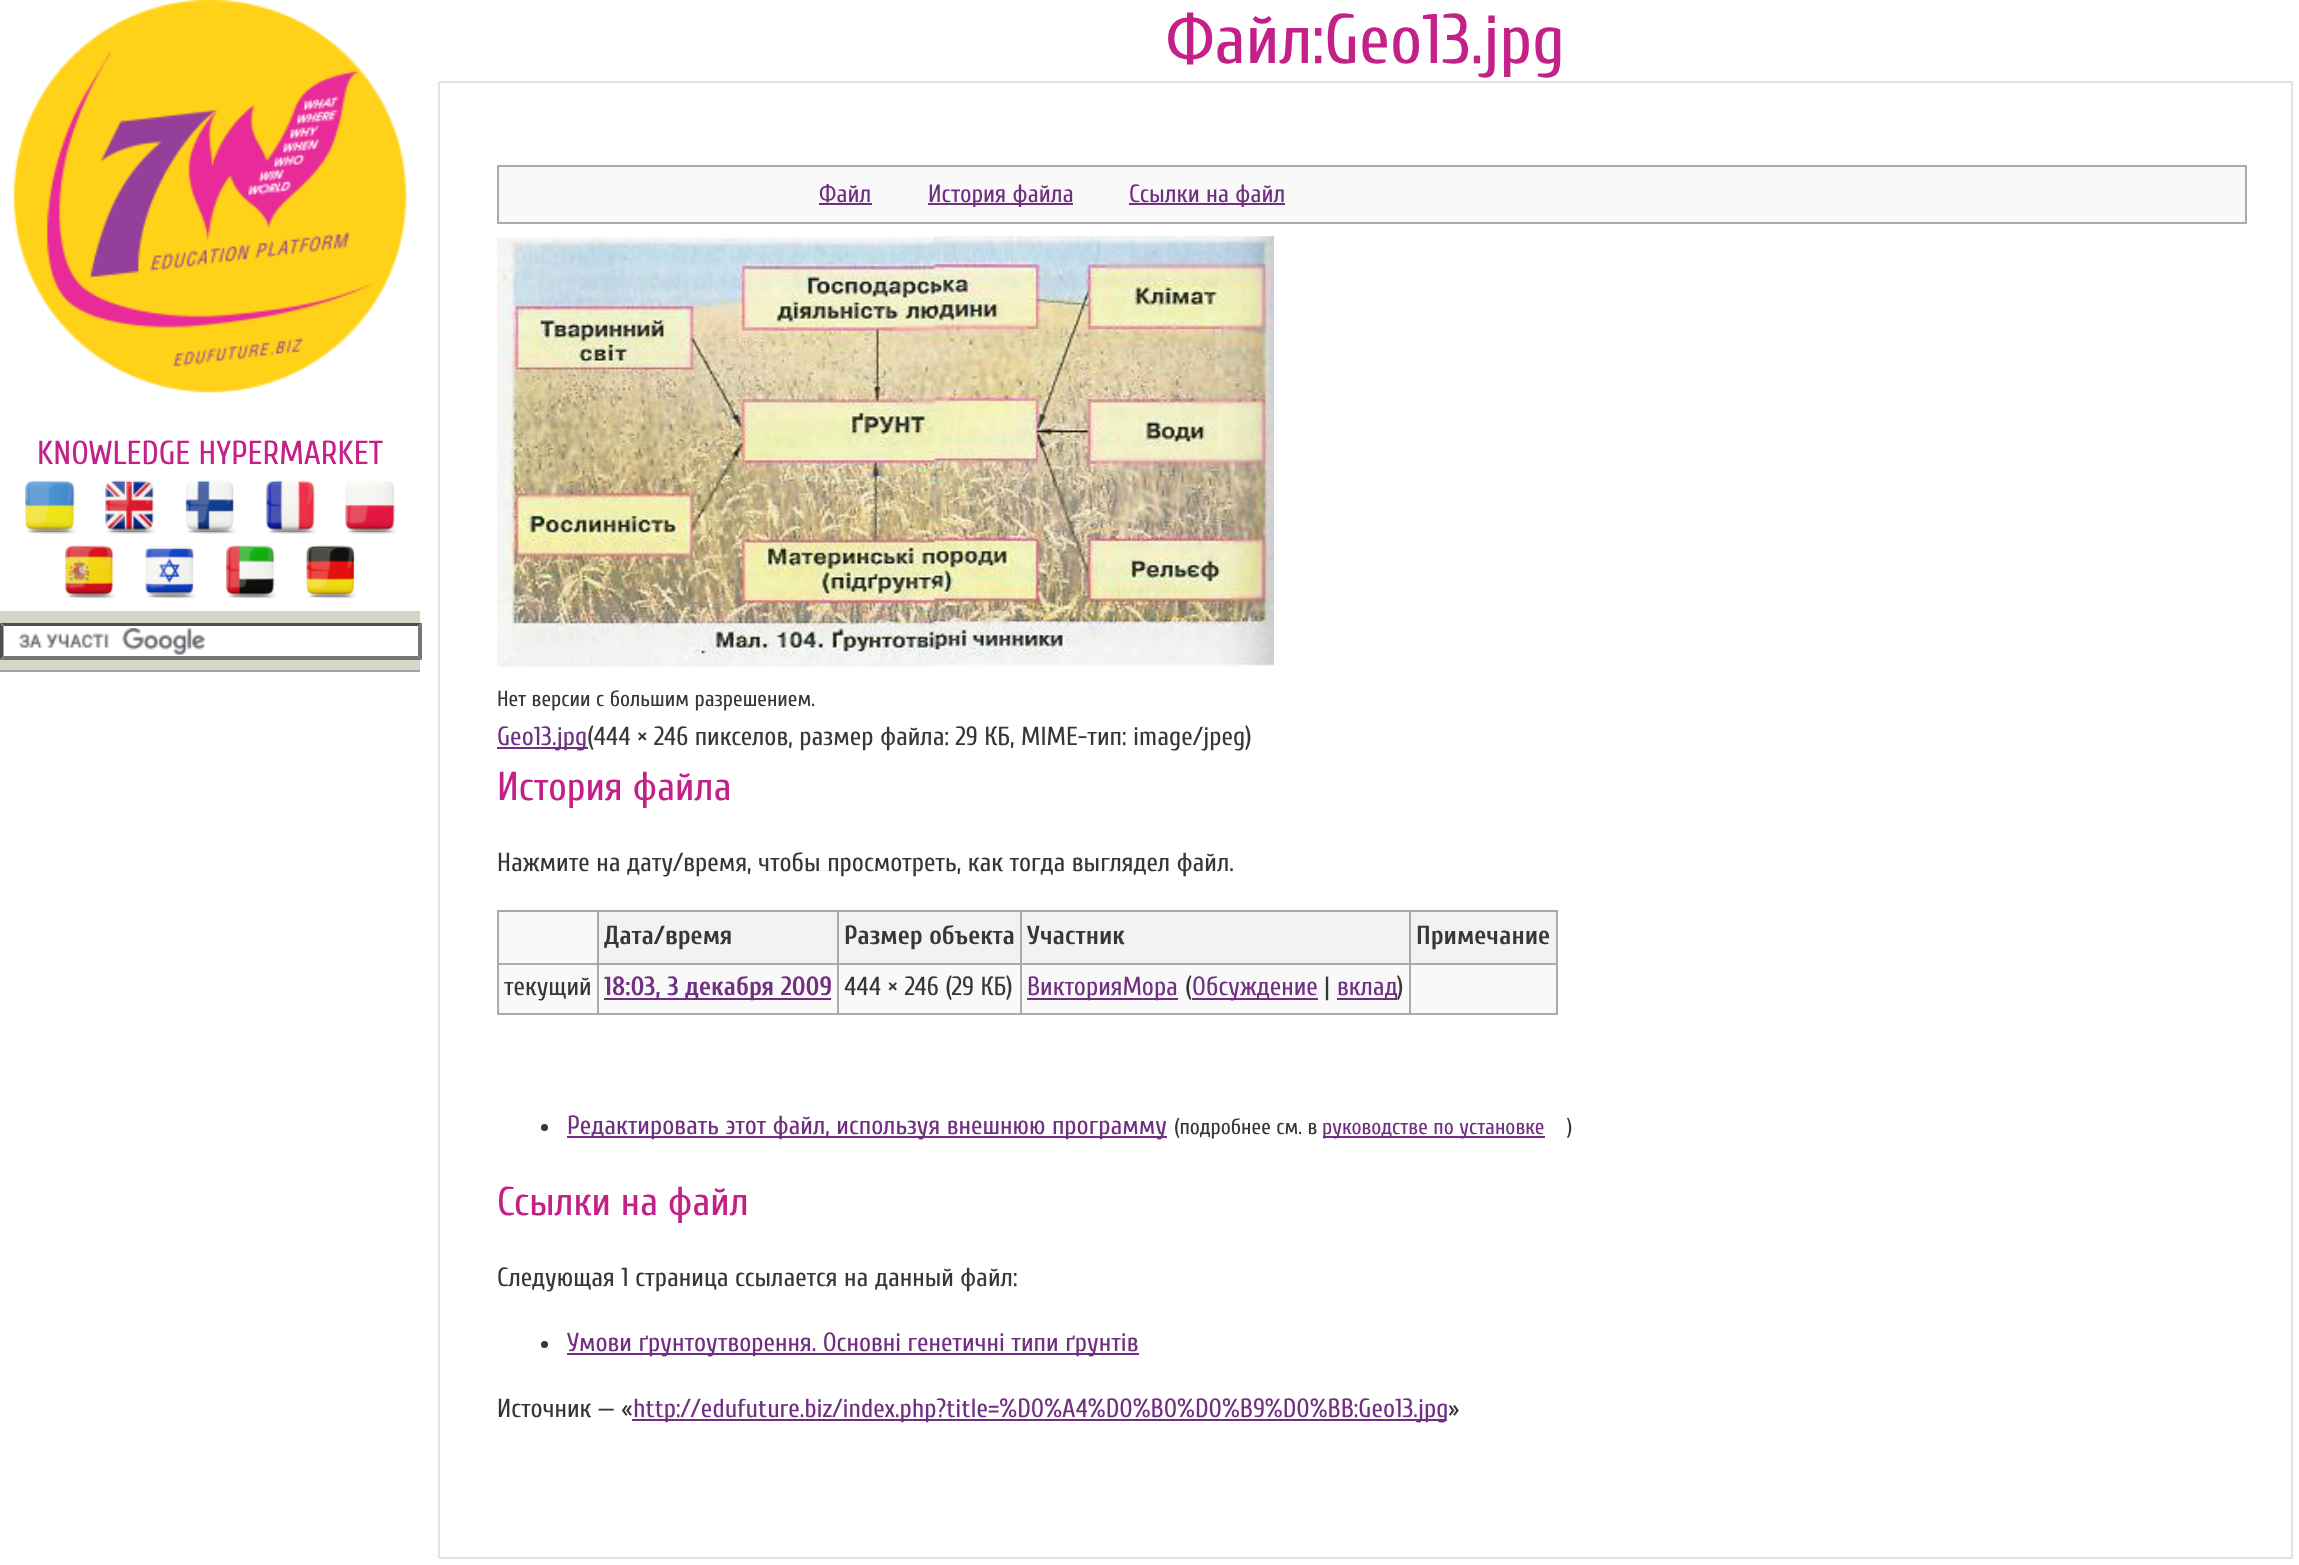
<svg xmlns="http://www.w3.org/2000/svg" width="2299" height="1565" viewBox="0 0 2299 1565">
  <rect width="100%" height="100%" fill="#fff"/>
  <image x="13" y="0" width="394" height="393" href="img/1.png"/>
  <image x="25" y="480" width="52" height="54" href="img/2.png"/>
  <image x="105" y="480" width="51" height="54" href="img/3.png"/>
  <image x="185" y="480" width="51" height="54" href="img/4.png"/>
  <image x="266" y="480" width="51" height="54" href="img/5.png"/>
  <image x="345" y="481" width="52" height="53" href="img/6.png"/>
  <image x="65" y="545" width="50" height="54" href="img/7.png"/>
  <image x="145" y="545" width="51" height="54" href="img/8.png"/>
  <image x="226" y="545" width="50" height="54" href="img/9.png"/>
  <image x="306" y="545" width="51" height="54" href="img/10.png"/>
  <path d="M0 611h420v59H0z" fill="#d3d7c7"/>
  <path d="M0 670h420v2H0z" fill="#a2a2a2"/>
  <path d="M0 623h420v37H0z" fill="#fff"/>
  <image x="19" y="628" width="186" height="27" href="img/11.png"/>
  <path d="M0 623H422L418 626H4Z" fill="#4f4f4f"/>
  <path d="M422 623V660L418 656V626.5Z" fill="#767676"/>
  <path d="M422 660H0L4 656H418Z" fill="#767676"/>
  <path d="M0 660V623L3.5 626.5V656Z" fill="#4f4f4f"/>
  <path d="M439 82h1853v1476H439z" fill="none" stroke="#e3e3e3" stroke-width="2"/>
  <path d="M498 166h1748v57H498z" fill="#f9f9f9" stroke="#aaa" stroke-width="2"/>
  <path d="M819 203h53v2H819z" fill="#702f81"/>
  <path d="M928 203h145v2H928z" fill="#702f81"/>
  <path d="M1129 203h156v2H1129z" fill="#702f81"/>
  <image x="497" y="236" width="777" height="431" href="img/12.png"/>
  <path d="M497 747h91v2H497z" fill="#702f81"/>
  <path d="M499 912h1057v101H499z" fill="#f9f9f9"/>
  <path d="M497 910h1061v2H497z" fill="#aaa"/>
  <path d="M1556 910h2v105H1556z" fill="#aaa"/>
  <path d="M497 1013h1061v2H497z" fill="#aaa"/>
  <path d="M497 910h2v105H497z" fill="#aaa"/>
  <path d="M599 912h238v51H599z" fill="#f2f2f2"/>
  <path d="M1409 963h149v2H1409z" fill="#aaa"/>
  <path d="M1409 963h2v52H1409z" fill="#aaa"/>
  <path d="M1020 963h391v2H1020z" fill="#aaa"/>
  <path d="M1020 963h2v52H1020z" fill="#aaa"/>
  <path d="M837 963h185v2H837z" fill="#aaa"/>
  <path d="M837 963h2v52H837z" fill="#aaa"/>
  <path d="M597 963h241v2H597z" fill="#aaa"/>
  <path d="M597 963h2v52H597z" fill="#aaa"/>
  <path d="M497 963h102v2H497z" fill="#aaa"/>
  <path d="M597 910h2v54H597z" fill="#aaa"/>
  <path d="M839 912h181v51H839z" fill="#f2f2f2"/>
  <path d="M837 910h2v54H837z" fill="#aaa"/>
  <path d="M1022 912h387v51H1022z" fill="#f2f2f2"/>
  <path d="M1020 910h2v54H1020z" fill="#aaa"/>
  <path d="M1411 912h145v51H1411z" fill="#f2f2f2"/>
  <path d="M1409 910h2v54H1409z" fill="#aaa"/>
  <path d="M604 998h227v2H604z" fill="#702f81"/>
  <path d="M1027 998h151v2H1027z" fill="#702f81"/>
  <path d="M1192 998h126v2H1192z" fill="#702f81"/>
  <path d="M1337 998h60v2H1337z" fill="#702f81"/>
  <circle cx="544.5" cy="1127.5" r="3.5" fill="#373737"/>
  <path d="M567 1136h600v2H567z" fill="#702f81"/>
  <path d="M1323 1136h222v2H1323z" fill="#702f81"/>
  <circle cx="544.5" cy="1344.5" r="3.5" fill="#373737"/>
  <path d="M567 1353h572v2H567z" fill="#702f81"/>
  <path d="M632 1419h815v2H632z" fill="#702f81"/>
  <text x="37" y="464" font-family="Cuprum" font-size="33.25" fill="#c32187">KNOWLEDGE HYPERMARKET</text>
  <text x="1166" y="63" font-family="Cuprum" font-size="70" fill="#c32187">Файл:Geo13.jpg</text>
  <g font-family="Cuprum" font-size="25" fill="#702f81">
    <text x="819" y="202">Файл</text>
    <text x="928" y="202">История файла</text>
    <text x="1129" y="202">Ссылки на файл</text>
  </g>
  <text x="497" y="706" font-family="Cuprum" font-size="21.9" fill="#373737">Нет версии с большим разрешением.</text>
  <text x="497" y="745" font-family="Cuprum" font-size="26.25" fill="#702f81">Geo13.jpg</text>
  <text x="587" y="745" font-family="Cuprum" font-size="26.25" fill="#373737"> (444 × 246 пикселов, размер файла: 29 КБ, MIME-тип: image/jpeg)</text>
  <text x="497" y="800" font-family="Cuprum" font-size="40.25" fill="#c32187">История файла</text>
  <text x="497" y="871" font-family="Cuprum" font-size="26.25" fill="#373737">Нажмите на дату/время, чтобы просмотреть, как тогда выглядел файл.</text>
  <g font-family="Cuprum" font-size="26.25" font-weight="bold" fill="#373737">
    <text x="604" y="944">Дата/время</text>
    <text x="844" y="944">Размер объекта</text>
    <text x="1027" y="944">Участник</text>
    <text x="1416" y="944">Примечание</text>
  </g>
  <text x="504" y="995" font-family="Cuprum" font-size="26.25" fill="#373737">текущий</text>
  <text x="604" y="995" font-family="Cuprum" font-size="26.25" font-weight="bold" fill="#702f81">18:03, 3 декабря 2009</text>
  <text x="844" y="995" font-family="Cuprum" font-size="26.25" fill="#373737">444 × 246 (29 КБ)</text>
  <text x="1027" y="995" font-family="Cuprum" font-size="26.25" fill="#702f81">ВикторияМора</text>
  <text x="1185" y="995" font-family="Cuprum" font-size="26.25" fill="#373737">(</text>
  <text x="1192" y="995" font-family="Cuprum" font-size="26.25" fill="#702f81">Обсуждение</text>
  <text x="1324" y="995" font-family="Cuprum" font-size="26.25" fill="#373737">|</text>
  <text x="1337" y="995" font-family="Cuprum" font-size="26.25" fill="#702f81">вклад</text>
  <text x="1397" y="995" font-family="Cuprum" font-size="26.25" fill="#373737">)</text>
  <text x="567" y="1134" font-family="Cuprum" font-size="26.25" fill="#702f81">Редактировать этот файл, используя внешнюю программу</text>
  <text x="1174" y="1134" font-family="Cuprum" font-size="21.9" fill="#373737">(подробнее см. в</text>
  <text x="1322" y="1134" font-family="Cuprum" font-size="21.9" fill="#702f81">руководстве по установке</text>
  <text x="1567" y="1134" font-family="Cuprum" font-size="21.9" fill="#373737">)</text>
  <text x="497" y="1215" font-family="Cuprum" font-size="40.25" fill="#c32187">Ссылки на файл</text>
  <text x="497" y="1286" font-family="Cuprum" font-size="26.25" fill="#373737">Следующая 1 страница ссылается на данный файл:</text>
  <text x="567" y="1351" font-family="Cuprum" font-size="26.25" fill="#702f81">Умови ґрунтоутворення. Основні генетичні типи ґрунтів</text>
  <text x="497" y="1417" font-family="Cuprum" font-size="26.25" fill="#373737">Источник — «</text>
  <text x="633" y="1417" font-family="Cuprum" font-size="26.25" fill="#702f81">http://edufuture.biz/index.php?title=%D0%A4%D0%B0%D0%B9%D0%BB:Geo13.jpg</text>
  <text x="1448" y="1417" font-family="Cuprum" font-size="26.25" fill="#373737">»</text>
</svg>
